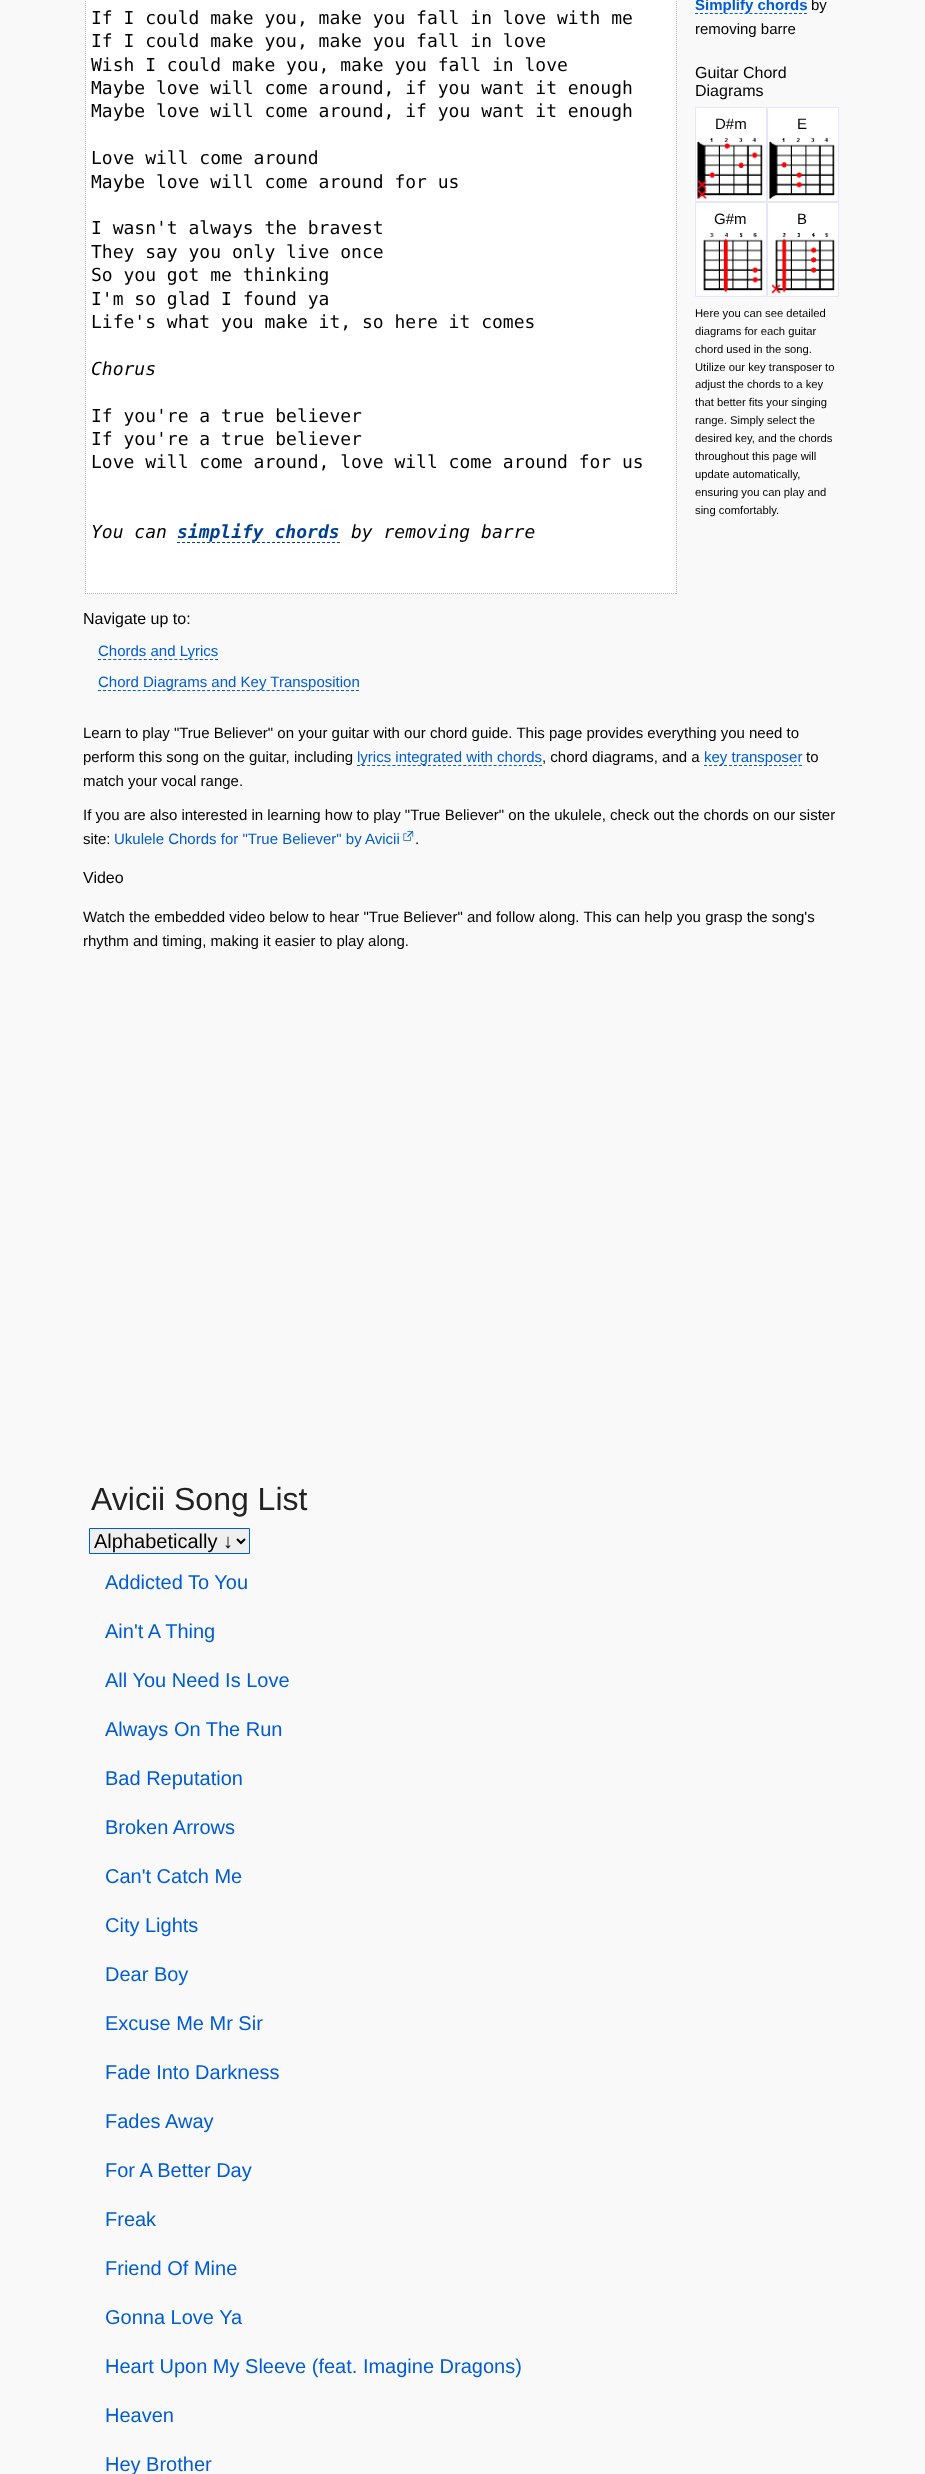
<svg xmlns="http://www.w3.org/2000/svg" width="925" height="2474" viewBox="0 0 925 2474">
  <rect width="100%" height="100%" fill="#f9f9f9"/>
  <path d="M85 0h592v594H85z" fill="#fff"/>
  <path d="M676.5-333V594" fill="none" stroke="#aab4be" stroke-dasharray="1 1"/>
  <path d="M85 593.5H677" fill="none" stroke="#aab4be" stroke-dasharray="1 1"/>
  <path d="M85.5-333V594" fill="none" stroke="#aab4be" stroke-dasharray="1 1"/>
  <path d="M177 542.5H340" fill="none" stroke="#004093" stroke-dasharray="3 2"/>
  <path d="M695 13.5H807" fill="none" stroke="#005cd4" stroke-dasharray="3 1.95"/>
  <path d="M695.5 107.5h71v94H695.5z" fill="#fff" stroke="#e6e6fa"/>
  <image x="697" y="138" width="66" height="62" href="img/1.png"/>
  <path d="M767.5 107.5h71v94H767.5z" fill="#fff" stroke="#e6e6fa"/>
  <image x="769" y="138" width="66" height="62" href="img/2.png"/>
  <path d="M695.5 202.5h71v94H695.5z" fill="#fff" stroke="#e6e6fa"/>
  <image x="703" y="233" width="60" height="60" href="img/3.png"/>
  <path d="M767.5 202.5h71v94H767.5z" fill="#fff" stroke="#e6e6fa"/>
  <image x="771" y="233" width="64" height="61" href="img/4.png"/>
  <path d="M98 659.5H218" fill="none" stroke="#005cd4" stroke-dasharray="3 2.09"/>
  <path d="M98 690.5H359" fill="none" stroke="#005cd4" stroke-dasharray="3 1.96"/>
  <path d="M357 765.5H542" fill="none" stroke="#005cd4" stroke-dasharray="3 2.06"/>
  <path d="M704 765.5H802" fill="none" stroke="#005cd4" stroke-dasharray="3 2"/>
  <image x="403" y="831" width="11" height="10" href="img/5.png"/>
  <path d="M89.5 1528.5h160v25H89.5z" fill="#efefef" stroke="#005cd4"/>
  <path d="M237 1539L241 1543L245 1539" fill="none" stroke="#000" stroke-width="2"/>
  <g font-family="DejaVu Sans Mono" font-size="18" fill="#000">
    <text x="91" y="24">If I could make you, make you fall in love with me</text>
    <text x="91" y="47">If I could make you, make you fall in love</text>
    <text x="91" y="71">Wish I could make you, make you fall in love</text>
    <text x="91" y="94">Maybe love will come around, if you want it enough</text>
    <text x="91" y="117">Maybe love will come around, if you want it enough</text>
    <text x="91" y="164">Love will come around</text>
    <text x="91" y="188">Maybe love will come around for us</text>
    <text x="91" y="234">I wasn't always the bravest</text>
    <text x="91" y="258">They say you only live once</text>
    <text x="91" y="281">So you got me thinking</text>
    <text x="91" y="305">I'm so glad I found ya</text>
    <text x="91" y="328">Life's what you make it, so here it comes</text>
  </g>
  <text x="91" y="375" font-family="DejaVu Sans Mono" font-size="18" font-style="italic" fill="#000">Chorus</text>
  <g font-family="DejaVu Sans Mono" font-size="18" fill="#000">
    <text x="91" y="422">If you're a true believer</text>
    <text x="91" y="445">If you're a true believer</text>
    <text x="91" y="468">Love will come around, love will come around for us</text>
  </g>
  <text x="91" y="538" font-family="DejaVu Sans Mono" font-size="18" font-style="italic" fill="#000">You can</text>
  <text x="177" y="538" font-family="DejaVu Sans Mono" font-size="18" font-weight="bold" font-style="italic" fill="#004093">simplify chords</text>
  <text x="351" y="538" font-family="DejaVu Sans Mono" font-size="18" font-style="italic" fill="#000">by removing barre</text>
  <text x="695" y="10" font-family="Liberation Sans" font-size="15" font-weight="bold" fill="#005cd4">Simplify chords</text>
  <g font-family="Liberation Sans" font-size="15" fill="#000">
    <text x="811" y="10">by</text>
    <text x="695" y="34">removing barre</text>
  </g>
  <g font-family="Liberation Sans" font-size="16" fill="#000">
    <text x="695" y="78">Guitar Chord</text>
    <text x="695" y="96">Diagrams</text>
  </g>
  <g font-family="Liberation Sans" font-size="15" fill="#000">
    <text x="715" y="129">D#m</text>
    <text x="797" y="129">E</text>
    <text x="714" y="224">G#m</text>
    <text x="797" y="224">B</text>
  </g>
  <g font-family="Liberation Sans" font-size="11.25" fill="#000">
    <text x="695" y="317">Here you can see detailed</text>
    <text x="695" y="335">diagrams for each guitar</text>
    <text x="695" y="353">chord used in the song.</text>
    <text x="695" y="371">Utilize our key transposer to</text>
    <text x="695" y="388">adjust the chords to a key</text>
    <text x="695" y="406">that better fits your singing</text>
    <text x="695" y="424">range. Simply select the</text>
    <text x="695" y="442">desired key, and the chords</text>
    <text x="695" y="460">throughout this page will</text>
    <text x="695" y="478">update automatically,</text>
    <text x="695" y="496">ensuring you can play and</text>
    <text x="695" y="514">sing comfortably.</text>
  </g>
  <text x="83" y="624" font-family="Liberation Sans" font-size="16" fill="#000">Navigate up to:</text>
  <g font-family="Liberation Sans" font-size="15" fill="#005cd4">
    <text x="98" y="656">Chords and Lyrics</text>
    <text x="98" y="687">Chord Diagrams and Key Transposition</text>
  </g>
  <g font-family="Liberation Sans" font-size="15" fill="#000">
    <text x="83" y="738">Learn to play "True Believer" on your guitar with our chord guide. This page provides everything you need to</text>
    <text x="83" y="762">perform this song on the guitar, including</text>
  </g>
  <text x="357" y="762" font-family="Liberation Sans" font-size="15" fill="#005cd4">lyrics integrated with chords</text>
  <text x="542" y="762" font-family="Liberation Sans" font-size="15" fill="#000">, chord diagrams, and a</text>
  <text x="704" y="762" font-family="Liberation Sans" font-size="15" fill="#005cd4">key transposer</text>
  <g font-family="Liberation Sans" font-size="15" fill="#000">
    <text x="806" y="762">to</text>
    <text x="83" y="786">match your vocal range.</text>
    <text x="83" y="820">If you are also interested in learning how to play "True Believer" on the ukulele, check out the chords on our sister</text>
    <text x="83" y="844">site:</text>
  </g>
  <text x="114" y="844" font-family="Liberation Sans" font-size="15" fill="#005cd4">Ukulele Chords for "True Believer" by Avicii</text>
  <text x="415" y="844" font-family="Liberation Sans" font-size="15" fill="#000">.</text>
  <text x="83" y="883" font-family="Liberation Sans" font-size="16" fill="#000">Video</text>
  <g font-family="Liberation Sans" font-size="15" fill="#000">
    <text x="83" y="922">Watch the embedded video below to hear "True Believer" and follow along. This can help you grasp the song's</text>
    <text x="83" y="946">rhythm and timing, making it easier to play along.</text>
  </g>
  <text x="91" y="1510" font-family="Liberation Sans" font-size="32" fill="#222">Avicii Song List</text>
  <text x="94" y="1548" font-family="Liberation Sans" font-size="20" fill="#000">Alphabetically ↓</text>
  <g font-family="Liberation Sans" font-size="20" fill="#005cd4">
    <text x="105" y="1589">Addicted To You</text>
    <text x="105" y="1638">Ain't A Thing</text>
    <text x="105" y="1687">All You Need Is Love</text>
    <text x="105" y="1736">Always On The Run</text>
    <text x="105" y="1785">Bad Reputation</text>
    <text x="105" y="1834">Broken Arrows</text>
    <text x="105" y="1883">Can't Catch Me</text>
    <text x="105" y="1932">City Lights</text>
    <text x="105" y="1981">Dear Boy</text>
    <text x="105" y="2030">Excuse Me Mr Sir</text>
    <text x="105" y="2079">Fade Into Darkness</text>
    <text x="105" y="2128">Fades Away</text>
    <text x="105" y="2177">For A Better Day</text>
    <text x="105" y="2226">Freak</text>
    <text x="105" y="2275">Friend Of Mine</text>
    <text x="105" y="2324">Gonna Love Ya</text>
    <text x="105" y="2373">Heart Upon My Sleeve (feat. Imagine Dragons)</text>
    <text x="105" y="2422">Heaven</text>
    <text x="105" y="2471">Hey Brother</text>
  </g>
</svg>
